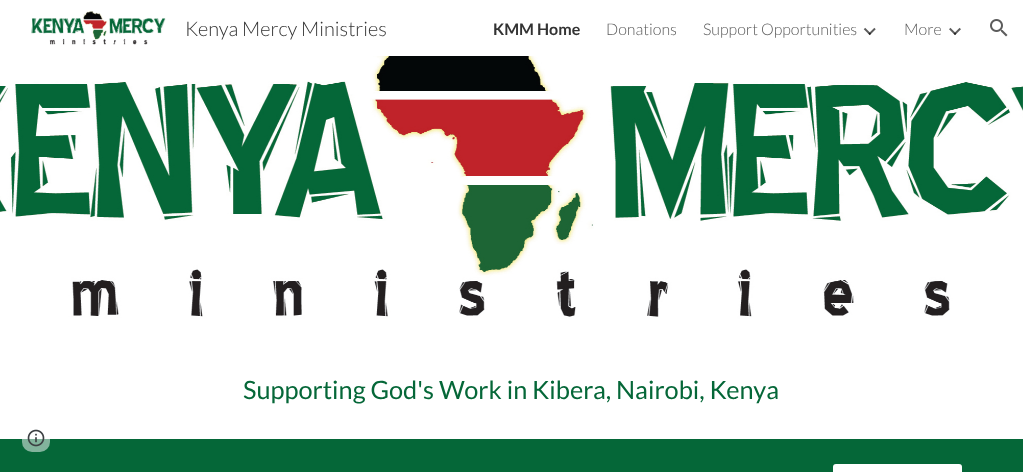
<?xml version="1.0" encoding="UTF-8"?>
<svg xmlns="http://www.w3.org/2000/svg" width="1023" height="472">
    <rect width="100%" height="100%" fill="#FFFFFF"/>
    <image x="31" y="11" width="135" height="34" href="img_01.png"/>
    <text x="185" y="36" font-family="Lato" font-size="20" font-weight="300" fill="#333333">Kenya Mercy Ministries</text>
    <text x="493" y="35" font-family="Lato" font-size="16" font-weight="700" fill="#333333">KMM Home</text>
    <text x="606" y="35" font-family="Lato" font-size="16" font-weight="300" fill="#5C5C5C">Donations</text>
    <text x="703" y="35" font-family="Lato" font-size="16" font-weight="300" fill="#5C5C5C">Support Opportunities</text>
    <image x="863" y="27" width="13" height="9" href="img_02.png"/>
    <text x="904" y="35" font-family="Lato" font-size="16" font-weight="300" fill="#5C5C5C">More</text>
    <image x="949" y="27" width="12" height="8" href="img_03.png"/>
    <image x="990" y="19" width="18" height="18" href="img_04.png"/>
    <image x="0" y="56" width="1023" height="284" href="img_05.png"/>
    <text x="243" y="399" font-family="Lato" font-size="25.3" fill="#056738">Supporting God's Work in Kibera, Nairobi, Kenya</text>
    <rect x="0" y="439" width="1023" height="33" fill="#056738"/>
    <rect x="833" y="464" width="129" height="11" rx="3" fill="#FFFFFF"/>
    <rect x="22" y="424" width="28" height="28" rx="10" fill="#FFFFFF" fill-opacity="0.5"/>
    <image x="27" y="429" width="18" height="18" href="img_06.png"/>
</svg>
